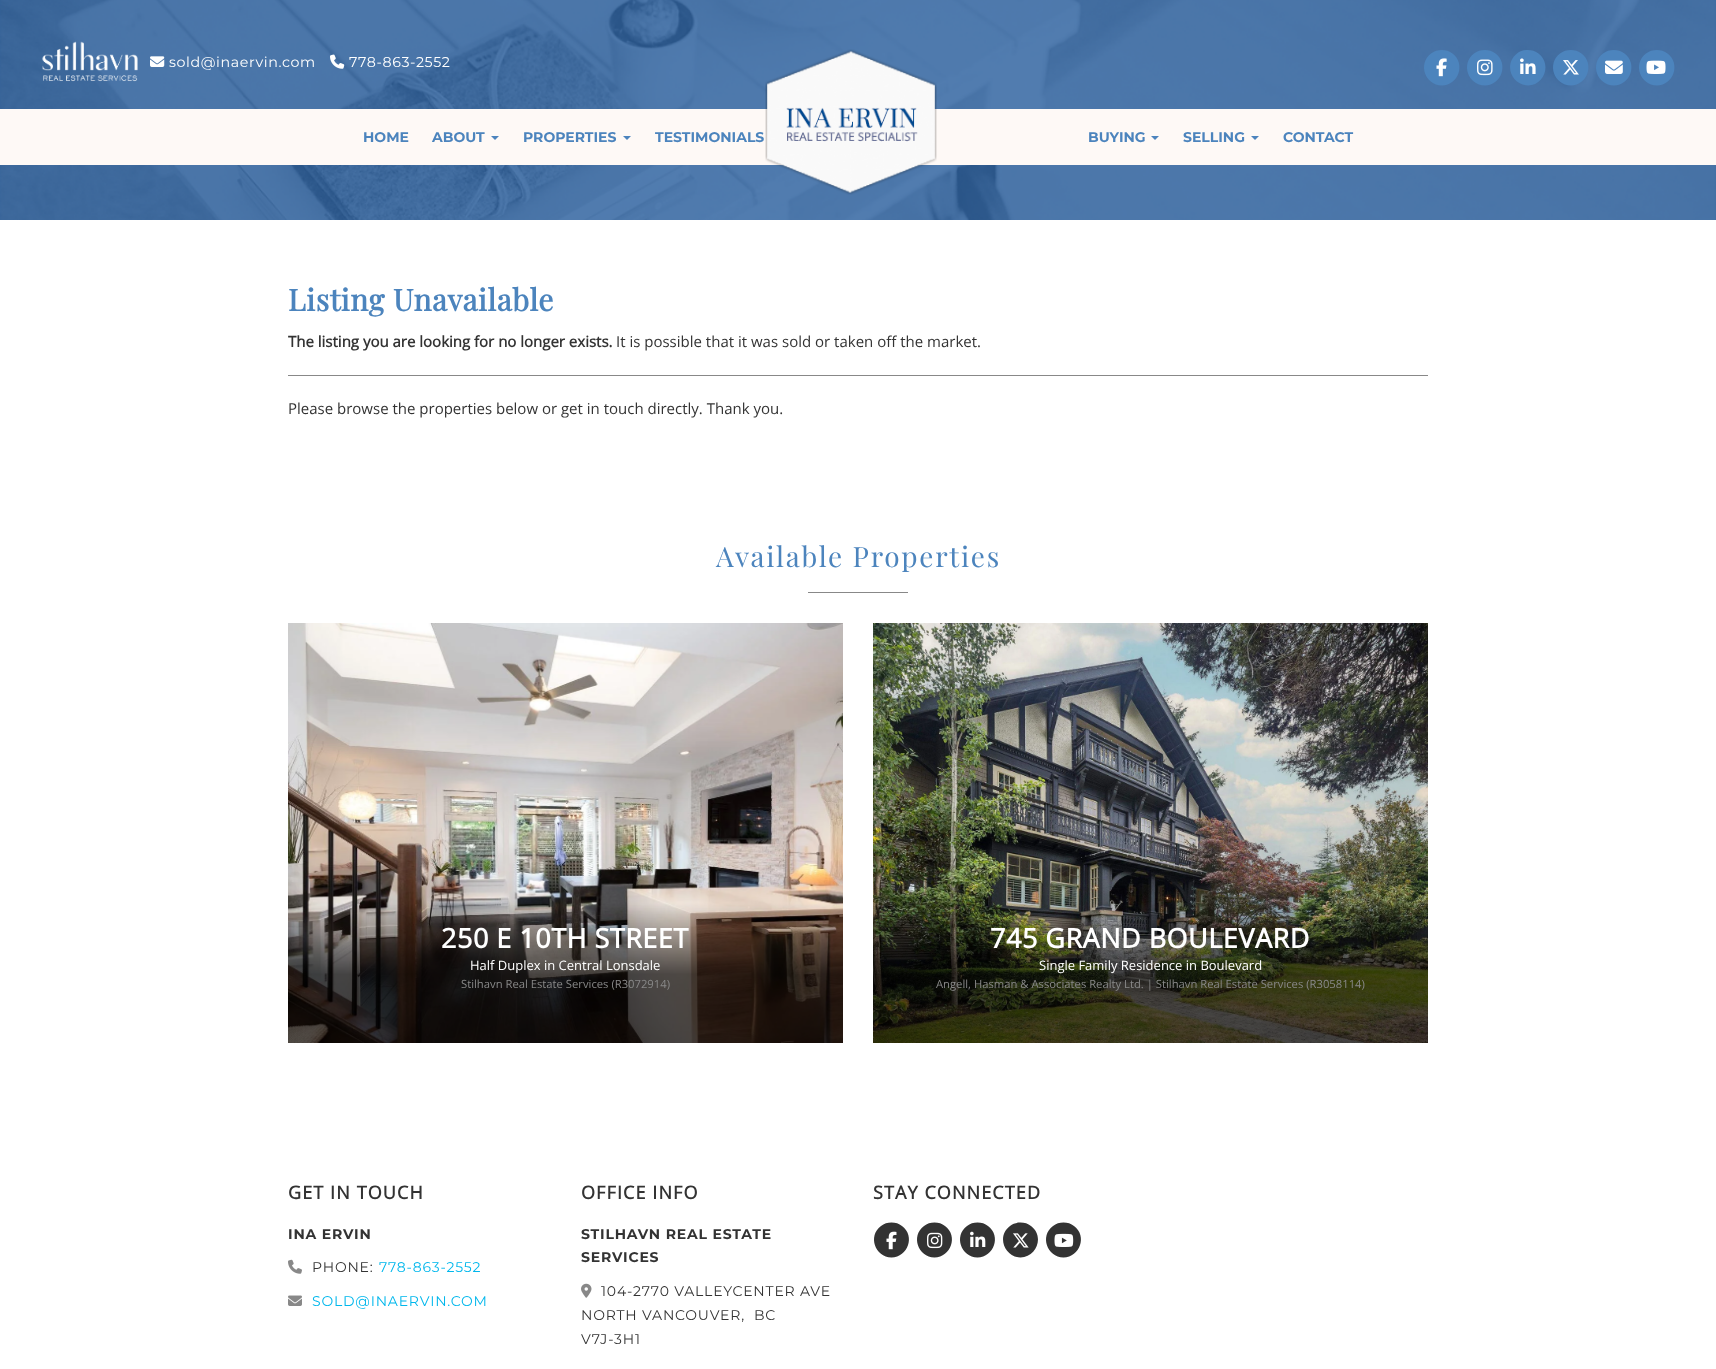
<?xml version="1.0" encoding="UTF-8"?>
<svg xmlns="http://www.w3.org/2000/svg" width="1716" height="1369">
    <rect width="100%" height="100%" fill="#FFFFFF"/>
    <image x="0" y="0" width="1716" height="220" href="img_01.png"/>
    <image x="42" y="41" width="96" height="41" href="img_02.png"/>
    <image x="150" y="56" width="15" height="11" href="img_03.png"/>
    <text x="169" y="67" font-family="Montserrat" font-size="14.25" letter-spacing="0.6" fill="#FFFFFF">sold@inaervin.com</text>
    <image x="330" y="54" width="15" height="15" href="img_04.png"/>
    <text x="349" y="67" font-family="Montserrat" font-size="14.25" letter-spacing="0.6" fill="#FFFFFF">778-863-2552</text>
    <path d="M 1442 85.5 C 1458.5 85 1466 64 1452.5 53.5 C 1449.5 51 1445.5 50 1442 50 C 1438 50 1434 51 1431 53.5 C 1417.5 64 1425 85 1442 85.5 Z" fill="#4C84BD"/>
    <image x="1436" y="58" width="11" height="19" href="img_05.png"/>
    <path d="M 1485 85.5 C 1501.5 85 1509 64 1495.5 53.5 C 1492.5 51 1488.5 50 1485 50 C 1481 50 1477 51 1474 53.5 C 1460.5 64 1468 85 1485 85.5 Z" fill="#4C84BD"/>
    <image x="1477" y="59" width="16" height="17" href="img_06.png"/>
    <path d="M 1528 85.5 C 1544.5 85 1552 64 1538.5 53.5 C 1535.5 51 1531.5 50 1528 50 C 1524 50 1520 51 1517 53.5 C 1503.5 64 1511 85 1528 85.5 Z" fill="#4C84BD"/>
    <image x="1520" y="58" width="16" height="16" href="img_07.png"/>
    <path d="M 1571 85.5 C 1587.5 85 1595 64 1581.5 53.5 C 1578.5 51 1574.5 50 1571 50 C 1567 50 1563 51 1560 53.5 C 1546.5 64 1554 85 1571 85.5 Z" fill="#4C84BD"/>
    <image x="1563" y="60" width="16" height="15" href="img_08.png"/>
    <path d="M 1614 85.5 C 1630.5 85 1638 64 1624.5 53.5 C 1621.5 51 1617.5 50 1614 50 C 1610 50 1606 51 1603 53.5 C 1589.5 64 1597 85 1614 85.5 Z" fill="#4C84BD"/>
    <image x="1605" y="60" width="18" height="14" href="img_09.png"/>
    <path d="M 1657 85.5 C 1673.5 85 1681 64 1667.5 53.5 C 1664.5 51 1660.5 50 1657 50 C 1653 50 1649 51 1646 53.5 C 1632.5 64 1640 85 1657 85.5 Z" fill="#4C84BD"/>
    <image x="1646" y="60" width="20" height="14" href="img_10.png"/>
    <rect x="0" y="109" width="1716" height="56" fill="#FEF9F6"/>
    <image x="765" y="49" width="172" height="146" href="img_11.png"/>
    <text x="363" y="142" font-family="Montserrat" font-size="14" font-weight="700" fill="#4C84BD">HOME</text>
    <text x="432" y="142" font-family="Montserrat" font-size="14" font-weight="700" fill="#4C84BD">ABOUT</text>
    <path d="M 491 136 H 499 L 495 140 Z" fill="#4C84BD"/>
    <text x="523" y="142" font-family="Montserrat" font-size="14" font-weight="700" fill="#4C84BD">PROPERTIES</text>
    <path d="M 623 136 H 631 L 627 140 Z" fill="#4C84BD"/>
    <text x="655" y="142" font-family="Montserrat" font-size="14" font-weight="700" fill="#4C84BD">TESTIMONIALS</text>
    <text x="1088" y="142" font-family="Montserrat" font-size="14" font-weight="700" fill="#4C84BD">BUYING</text>
    <path d="M 1151 136 H 1159 L 1155 140 Z" fill="#4C84BD"/>
    <text x="1183" y="142" font-family="Montserrat" font-size="14" font-weight="700" fill="#4C84BD">SELLING</text>
    <path d="M 1251 136 H 1259 L 1255 140 Z" fill="#4C84BD"/>
    <text x="1283" y="142" font-family="Montserrat" font-size="14" font-weight="700" fill="#4C84BD">CONTACT</text>
    <text x="288" y="311" font-family="Playfair Display" font-size="30" font-weight="700" letter-spacing="0.6" fill="#4C84BD">Listing Unavailable</text>
    <text x="288" y="347" font-family="Open Sans" font-size="15" font-weight="700" fill="#333333">The listing you are looking for no longer exists.</text>
    <text x="616" y="347" font-family="Open Sans" font-size="15" fill="#333333">It is possible that it was sold or taken off the market.</text>
    <rect x="288" y="375" width="1140" height="1" fill="#888888"/>
    <text x="288" y="414" font-family="Open Sans" font-size="15" fill="#333333">Please browse the properties below or get in touch directly. Thank you.</text>
    <text x="716" y="567" font-family="Playfair Display" font-size="28" letter-spacing="1.7" fill="#4C84BD">Available Properties</text>
    <rect x="808" y="592" width="100" height="1" fill="#888888"/>
    <image x="288" y="623" width="555" height="420" href="img_12.png"/>
    <text x="441" y="948" font-family="Open Sans" font-size="27" font-weight="700" letter-spacing="0.5" fill="#FFFFFF">250 E 10TH STREET</text>
    <text x="470" y="970" font-family="Open Sans" font-size="13" fill="#FFFFFF">Half Duplex in Central Lonsdale</text>
    <text x="461" y="988" font-family="Open Sans" font-size="11.25" fill="#888888">Stilhavn Real Estate Services (R3072914)</text>
    <image x="873" y="623" width="555" height="420" href="img_13.png"/>
    <text x="990" y="948" font-family="Open Sans" font-size="27" font-weight="700" letter-spacing="0.5" fill="#FFFFFF">745 GRAND BOULEVARD</text>
    <text x="1039" y="970" font-family="Open Sans" font-size="13" fill="#FFFFFF">Single Family Residence in Boulevard</text>
    <text x="936" y="988" font-family="Open Sans" font-size="11.25" fill="#888888">Angell, Hasman &amp; Associates Realty Ltd. | Stilhavn Real Estate Services (R3058114)</text>
    <text x="288" y="1199" font-family="Open Sans" font-size="18" font-weight="700" letter-spacing="1.1" fill="#333333">GET IN TOUCH</text>
    <text x="288" y="1239" font-family="Montserrat" font-size="14" font-weight="700" letter-spacing="0.8" fill="#333333">INA ERVIN</text>
    <image x="288" y="1259" width="14" height="15" href="img_14.png"/>
    <text x="312" y="1272" font-family="Montserrat" font-size="14" letter-spacing="0.8" fill="#333333">PHONE:</text>
    <text x="379" y="1272" font-family="Montserrat" font-size="14" letter-spacing="0.8" fill="#00B7EC">778-863-2552</text>
    <image x="288" y="1295" width="14" height="11" href="img_15.png"/>
    <text x="312" y="1306" font-family="Montserrat" font-size="14" letter-spacing="0.8" fill="#00B7EC">SOLD@INAERVIN.COM</text>
    <text x="581" y="1199" font-family="Open Sans" font-size="18" font-weight="700" letter-spacing="1.1" fill="#333333">OFFICE INFO</text>
    <text font-family="Montserrat" font-size="14" font-weight="700" letter-spacing="0.8" fill="#333333">
        <tspan x="581" y="1239">STILHAVN REAL ESTATE</tspan>
        <tspan x="581" y="1262">SERVICES</tspan>
    </text>
    <image x="581" y="1283" width="11" height="15" href="img_16.png"/>
    <text x="601" y="1296" font-family="Montserrat" font-size="14" letter-spacing="0.8" fill="#333333">104-2770 VALLEYCENTER AVE</text>
    <text x="581" y="1320" font-family="Montserrat" font-size="14" letter-spacing="0.8" fill="#333333">NORTH VANCOUVER,</text>
    <text x="754" y="1320" font-family="Montserrat" font-size="14" letter-spacing="0.8" fill="#333333">BC</text>
    <text x="581" y="1344" font-family="Montserrat" font-size="14" letter-spacing="0.8" fill="#333333">V7J-3H1</text>
    <text x="873" y="1199" font-family="Open Sans" font-size="18" font-weight="700" letter-spacing="1.1" fill="#333333">STAY CONNECTED</text>
    <path d="M 891.5 1257.5 C 908 1257 915.5 1236 902 1226 C 899 1223.5 895.5 1222.5 891.5 1222.5 C 887.5 1222.5 884 1223.5 881 1226 C 867.5 1236 875 1257 891.5 1257.5 Z" fill="#333333"/>
    <image x="886" y="1231" width="11" height="19" href="img_17.png"/>
    <path d="M 934.5 1257.5 C 951 1257 958.5 1236 945 1226 C 942 1223.5 938.5 1222.5 934.5 1222.5 C 930.5 1222.5 927 1223.5 924 1226 C 910.5 1236 918 1257 934.5 1257.5 Z" fill="#333333"/>
    <image x="927" y="1232" width="16" height="17" href="img_18.png"/>
    <path d="M 977.5 1257.5 C 994 1257 1001.5 1236 988 1226 C 985 1223.5 981.5 1222.5 977.5 1222.5 C 973.5 1222.5 970 1223.5 967 1226 C 953.5 1236 961 1257 977.5 1257.5 Z" fill="#333333"/>
    <image x="970" y="1231" width="16" height="16" href="img_19.png"/>
    <path d="M 1020.5 1257.5 C 1037 1257 1044.5 1236 1031 1226 C 1028 1223.5 1024.5 1222.5 1020.5 1222.5 C 1016.5 1222.5 1013 1223.5 1010 1226 C 996.5 1236 1004 1257 1020.5 1257.5 Z" fill="#333333"/>
    <image x="1013" y="1233" width="16" height="15" href="img_20.png"/>
    <path d="M 1063.5 1257.5 C 1080 1257 1087.5 1236 1074 1226 C 1071 1223.5 1067.5 1222.5 1063.5 1222.5 C 1059.5 1222.5 1056 1223.5 1053 1226 C 1039.5 1236 1047 1257 1063.5 1257.5 Z" fill="#333333"/>
    <image x="1054" y="1233" width="20" height="14" href="img_21.png"/>
</svg>
